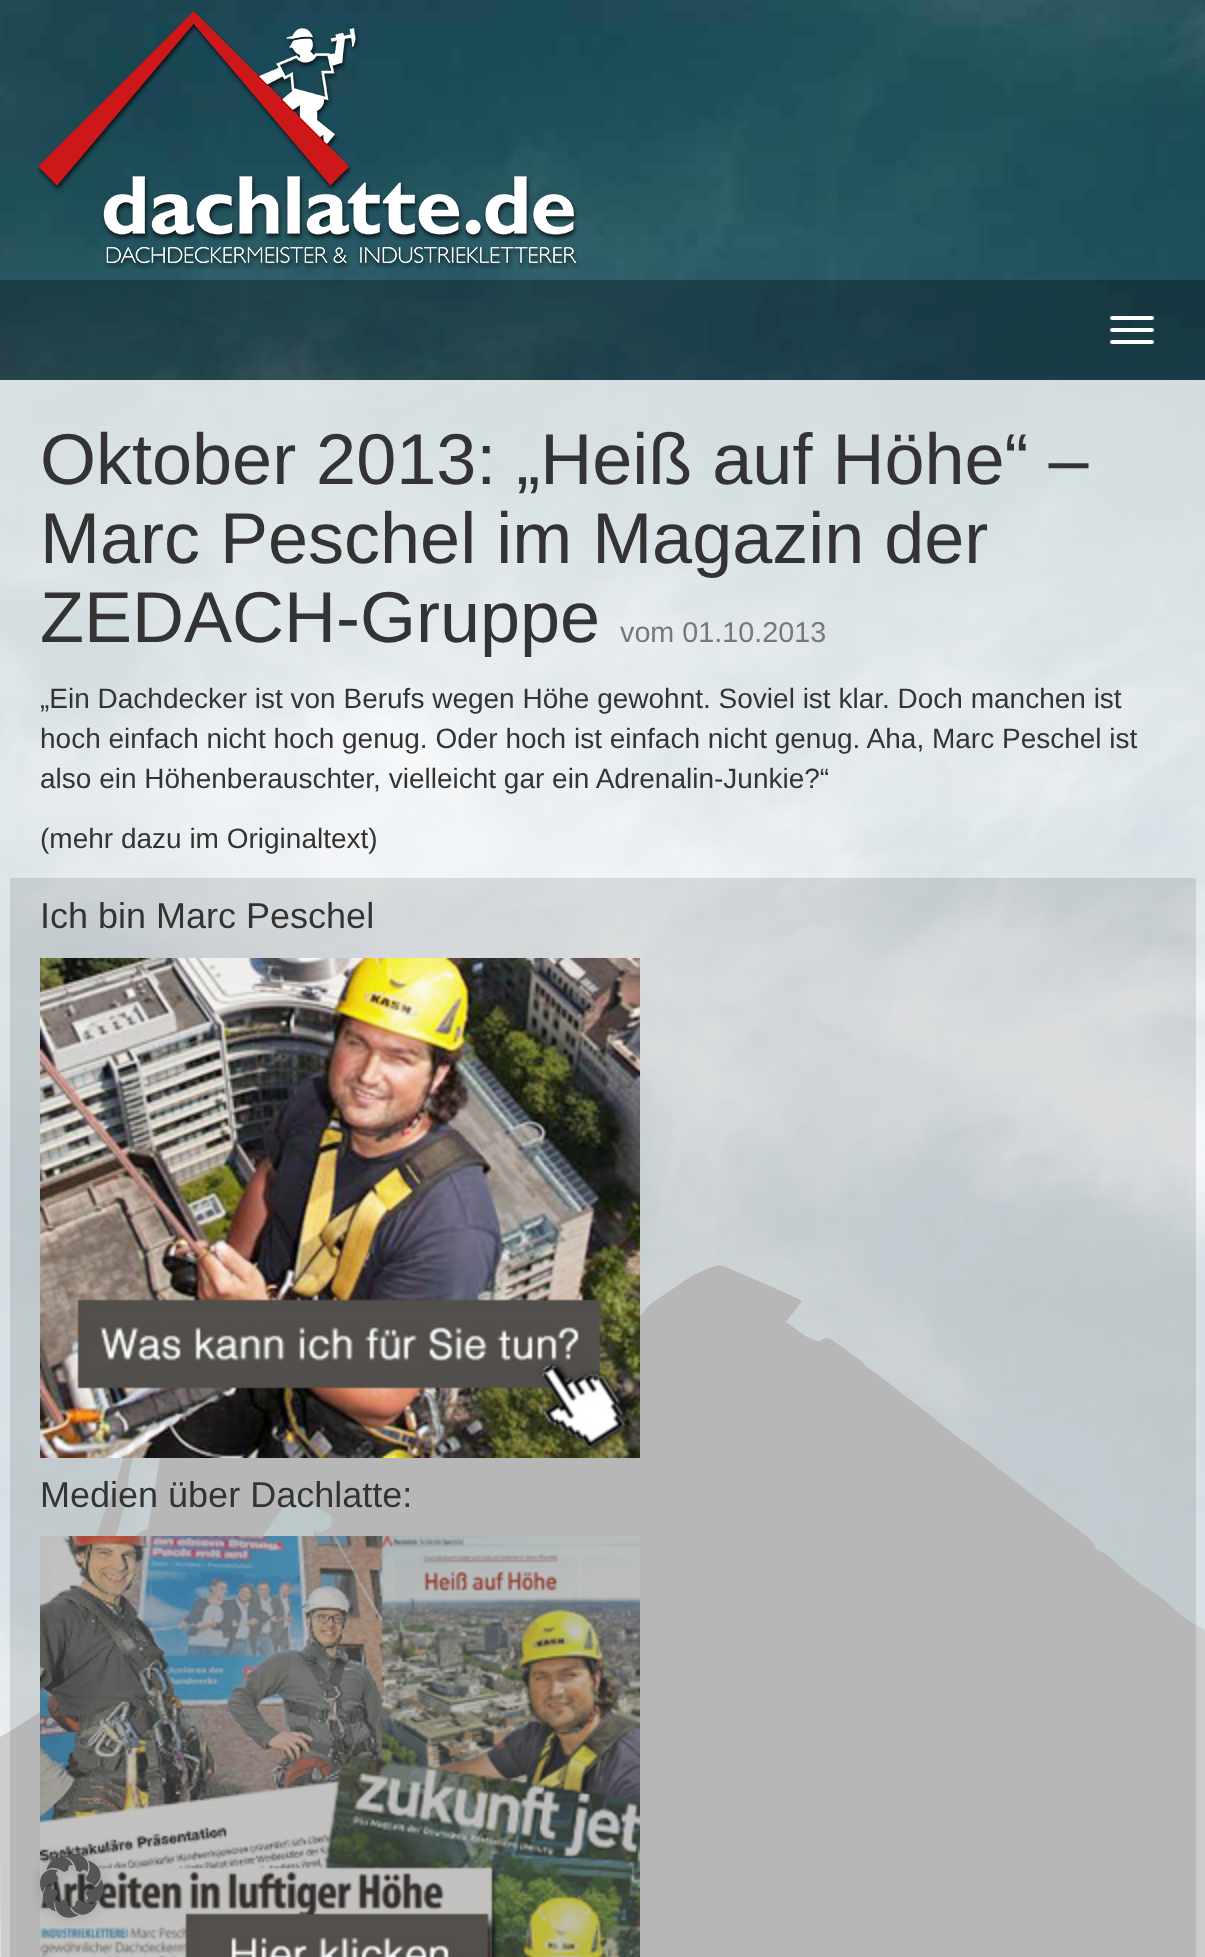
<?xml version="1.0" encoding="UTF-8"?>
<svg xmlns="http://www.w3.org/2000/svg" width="1205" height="1957">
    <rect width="100%" height="100%" fill="#FFFFFF"/>
    <image x="0" y="0" width="1205" height="1957" href="img_01.png"/>
    <image x="37" y="11" width="542" height="258" href="img_02.png"/>
    <rect x="0" y="280" width="1205" height="100" fill="#000000" fill-opacity="0.3"/>
    <rect x="1110" y="316" width="44" height="4" rx="2" fill="#FFFFFF"/>
    <rect x="1110" y="328" width="44" height="4" rx="2" fill="#FFFFFF"/>
    <rect x="1110" y="340" width="44" height="4" rx="2" fill="#FFFFFF"/>
    <image x="0" y="1265" width="1205" height="692" href="img_05.png"/>
    <rect x="0" y="380" width="1205" height="1577" fill="#FFFFFF" fill-opacity="0.8"/>
    <text font-family="Liberation Sans" font-size="72" fill="#333333">
        <tspan x="40" y="484">Oktober 2013: „Heiß auf Höhe“ –</tspan>
        <tspan x="40" y="563">Marc Peschel im Magazin der</tspan>
        <tspan x="40" y="642">ZEDACH-Gruppe</tspan>
    </text>
    <text x="620" y="642" font-family="Liberation Sans" font-size="28.75" fill="#777777">vom 01.10.2013</text>
    <text font-family="Liberation Sans" font-size="28" fill="#333333">
        <tspan x="40" y="708">„Ein Dachdecker ist von Berufs wegen Höhe gewohnt. Soviel ist klar. Doch manchen ist</tspan>
        <tspan x="40" y="748">hoch einfach nicht hoch genug. Oder hoch ist einfach nicht genug. Aha, Marc Peschel ist</tspan>
        <tspan x="40" y="788">also ein Höhenberauschter, vielleicht gar ein Adrenalin-Junkie?“</tspan>
    </text>
    <text x="40" y="848" font-family="Liberation Sans" font-size="28" fill="#333333">(mehr dazu im Originaltext)</text>
    <rect x="10" y="878" width="1186" height="1079" fill="#000000" fill-opacity="0.1"/>
    <text x="40" y="928" font-family="Liberation Sans" font-size="36" fill="#333333">Ich bin Marc Peschel</text>
    <image x="40" y="958" width="600" height="500" href="img_03.png"/>
    <text x="40" y="1507" font-family="Liberation Sans" font-size="36" fill="#333333">Medien über Dachlatte:</text>
    <image x="40" y="1536" width="600" height="421" href="img_04.png"/>
    <image x="32" y="1846" width="79" height="80" href="img_06.png"/>
</svg>
